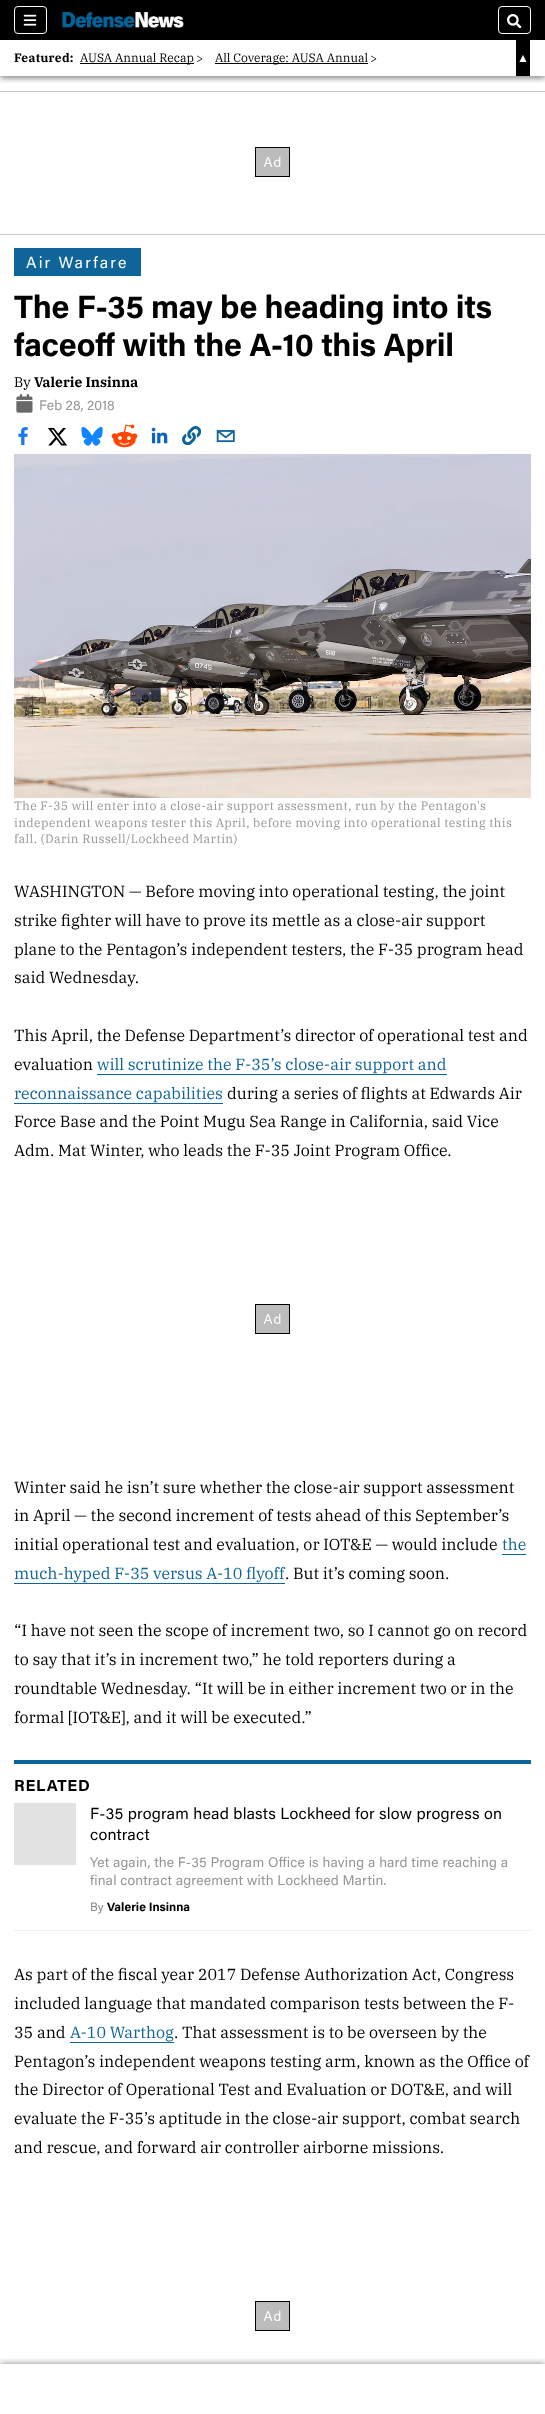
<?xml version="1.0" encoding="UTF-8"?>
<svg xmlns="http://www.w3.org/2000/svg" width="545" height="2414">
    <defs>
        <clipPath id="clip1"><rect x="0" y="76" width="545" height="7"/></clipPath>
        <filter id="blur1" x="-50%" y="-200%" width="200%" height="500%"><feGaussianBlur stdDeviation="3"/></filter>
        <clipPath id="clip2"><rect x="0" y="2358" width="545" height="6"/></clipPath>
        <filter id="blur2" x="-50%" y="-200%" width="200%" height="500%"><feGaussianBlur stdDeviation="3.5"/></filter>
    </defs>
    <rect width="100%" height="100%" fill="#FFFFFF"/>
    <g clip-path="url(#clip1)">
        <rect x="0" y="2" width="545" height="76" fill="#000000" fill-opacity="0.5" filter="url(#blur1)"/>
    </g>
    <rect x="0" y="0" width="545" height="40" fill="#000000"/>
    <rect x="14.5" y="6.5" width="32" height="27" rx="3.5" fill="none" stroke="#FFFFFF"/>
    <image x="23" y="14" width="14" height="12" href="img_01.png"/>
    <image x="62" y="12" width="122" height="16" href="img_02.png"/>
    <rect x="498.5" y="6.5" width="32" height="27" rx="3.5" fill="none" stroke="#FFFFFF"/>
    <image x="507" y="14" width="15" height="14" href="img_03.png"/>
    <text x="14" y="62" font-family="IBM Plex Serif" font-size="12.1" font-weight="700" letter-spacing="0.25" fill="#000000">Featured:</text>
    <rect x="80" y="63" width="114" height="1" fill="#000000"/>
    <text x="80" y="62" font-family="IBM Plex Serif" font-size="12.1" fill="#000000">AUSA Annual Recap</text>
    <text x="196" y="62" font-family="IBM Plex Serif" font-size="12.1" letter-spacing="-3" fill="#000000">&gt;</text>
    <rect x="215" y="63" width="153" height="1" fill="#000000"/>
    <text x="215" y="62" font-family="IBM Plex Serif" font-size="12.1" fill="#000000">All Coverage: AUSA Annual</text>
    <text x="370" y="62" font-family="IBM Plex Serif" font-size="12.1" letter-spacing="-3" fill="#000000">&gt;</text>
    <rect x="516" y="40" width="14" height="36" fill="#000000"/>
    <text x="517" y="62" font-family="Liberation Serif" font-size="12" fill="#FFFFFF">▲</text>
    <g clip-path="url(#clip2)">
        <rect x="0" y="2364" width="545" height="50" fill="#000000" fill-opacity="0.5" filter="url(#blur2)"/>
    </g>
    <rect x="0" y="91" width="545" height="1" fill="#C9C9C9"/>
    <rect x="256" y="148" width="33" height="28" fill="#BCBCBC"/>
    <image x="263" y="156" width="18" height="11" href="img_04.png"/>
    <rect x="255.5" y="147.5" width="34" height="29" fill="none" stroke="#000000"/>
    <rect x="0" y="234" width="545" height="1" fill="#C9C9C9"/>
    <rect x="14" y="248" width="127" height="28" fill="#0F6499"/>
    <text x="26" y="268" font-family="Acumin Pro" font-size="16" letter-spacing="2.1" fill="#FFFFFF">Air Warfare</text>
    <text font-family="Acumin Pro" font-size="32.2" font-weight="700" letter-spacing="-0.25" fill="#000000">
        <tspan x="14" y="318">The F-35 may be heading into its</tspan>
        <tspan x="14" y="356">faceoff with the A-10 this April</tspan>
    </text>
    <text x="14" y="387" font-family="IBM Plex Serif" font-size="13.9" fill="#000000">By</text>
    <text x="34" y="387" font-family="IBM Plex Serif" font-size="13.9" font-weight="700" fill="#000000">Valerie Insinna</text>
    <image x="16" y="394" width="17" height="19" href="img_05.png"/>
    <text x="39" y="410" font-family="Acumin Pro" font-size="13.9" fill="#969696">Feb 28, 2018</text>
    <image x="18" y="427" width="10" height="19" href="img_06.png"/>
    <image x="48" y="427" width="20" height="19" href="img_07.png"/>
    <image x="81" y="427" width="22" height="19" href="img_08.png"/>
    <image x="111" y="424" width="27" height="24" href="img_09.png"/>
    <image x="151" y="427" width="17" height="17" href="img_10.png"/>
    <image x="182" y="426" width="19" height="19" href="img_11.png"/>
    <image x="216" y="430" width="19" height="13" href="img_12.png"/>
    <image x="14" y="454" width="517" height="344" href="img_13.png"/>
    <text font-family="IBM Plex Serif" font-size="12.1" letter-spacing="0.4" fill="#969696">
        <tspan x="14" y="810">The F-35 will enter into a close-air support assessment, run by the Pentagon's</tspan>
        <tspan x="14" y="827">independent weapons tester this April, before moving into operational testing this</tspan>
        <tspan x="14" y="843">fall. (Darin Russell/Lockheed Martin)</tspan>
    </text>
    <text font-family="IBM Plex Serif" font-size="16" fill="#000000">
        <tspan x="14" y="897">WASHINGTON — Before moving into operational testing, the joint</tspan>
        <tspan x="14" y="926">strike fighter will have to prove its mettle as a close-air support</tspan>
        <tspan x="14" y="955">plane to the Pentagon’s independent testers, the F-35 program head</tspan>
        <tspan x="14" y="983">said Wednesday.</tspan>
    </text>
    <text font-family="IBM Plex Serif" font-size="16" fill="#000000">
        <tspan x="14" y="1041">This April, the Defense Department’s director of operational test and</tspan>
        <tspan x="14" y="1070">evaluation</tspan>
    </text>
    <text x="97" y="1070" font-family="IBM Plex Serif" font-size="16" fill="#0F6499">will scrutinize the F-35’s close-air support and</text>
    <rect x="97" y="1074" width="350" height="1" fill="#0F6499"/>
    <text x="14" y="1099" font-family="IBM Plex Serif" font-size="16" fill="#0F6499">reconnaissance capabilities</text>
    <rect x="14" y="1103" width="209" height="1" fill="#0F6499"/>
    <text x="227" y="1099" font-family="IBM Plex Serif" font-size="16" fill="#000000">during a series of flights at Edwards Air</text>
    <text font-family="IBM Plex Serif" font-size="16" fill="#000000">
        <tspan x="14" y="1127">Force Base and the Point Mugu Sea Range in California, said Vice</tspan>
        <tspan x="14" y="1156">Adm. Mat Winter, who leads the F-35 Joint Program Office.</tspan>
    </text>
    <rect x="256" y="1305" width="33" height="28" fill="#BCBCBC"/>
    <image x="263" y="1313" width="18" height="11" href="img_04.png"/>
    <rect x="255.5" y="1304.5" width="34" height="29" fill="none" stroke="#000000"/>
    <text font-family="IBM Plex Serif" font-size="16" fill="#000000">
        <tspan x="14" y="1493">Winter said he isn’t sure whether the close-air support assessment</tspan>
        <tspan x="14" y="1521">in April — the second increment of tests ahead of this September’s</tspan>
        <tspan x="14" y="1550">initial operational test and evaluation, or IOT&amp;E — would include</tspan>
    </text>
    <text x="502" y="1550" font-family="IBM Plex Serif" font-size="16" fill="#0F6499">the</text>
    <rect x="502" y="1554" width="24" height="1" fill="#0F6499"/>
    <text x="14" y="1579" font-family="IBM Plex Serif" font-size="16" fill="#0F6499">much-hyped F-35 versus A-10 flyoff</text>
    <rect x="14" y="1583" width="271" height="1" fill="#0F6499"/>
    <text x="285" y="1579" font-family="IBM Plex Serif" font-size="16" fill="#000000">. But it’s coming soon.</text>
    <text font-family="IBM Plex Serif" font-size="16" fill="#000000">
        <tspan x="14" y="1636">“I have not seen the scope of increment two, so I cannot go on record</tspan>
        <tspan x="14" y="1665">to say that it’s in increment two,” he told reporters during a</tspan>
        <tspan x="14" y="1694">roundtable Wednesday. “It will be in either increment two or in the</tspan>
        <tspan x="14" y="1723">formal [IOT&amp;E], and it will be executed.”</tspan>
    </text>
    <rect x="14" y="1930" width="517" height="1" fill="#EFEFEF"/>
    <rect x="14" y="1760" width="517" height="4" fill="#0F6499"/>
    <text x="14" y="1791" font-family="Acumin Pro" font-size="16" font-weight="700" letter-spacing="0.75" fill="#000000">RELATED</text>
    <rect x="14" y="1803" width="62" height="62" fill="#E2E2E2"/>
    <text font-family="Acumin Pro" font-size="16" letter-spacing="0.2" fill="#000000">
        <tspan x="90" y="1819">F-35 program head blasts Lockheed for slow progress on</tspan>
        <tspan x="90" y="1840">contract</tspan>
    </text>
    <text font-family="Acumin Pro" font-size="13.9" letter-spacing="0.17" fill="#969696">
        <tspan x="90" y="1867">Yet again, the F-35 Program Office is having a hard time reaching a</tspan>
        <tspan x="90" y="1885">final contract agreement with Lockheed Martin.</tspan>
    </text>
    <text x="90" y="1911" font-family="Acumin Pro" font-size="12.1" fill="#898989">By</text>
    <text x="107" y="1911" font-family="Acumin Pro" font-size="12.1" font-weight="700" fill="#000000">Valerie Insinna</text>
    <text font-family="IBM Plex Serif" font-size="16" fill="#000000">
        <tspan x="14" y="1980">As part of the fiscal year 2017 Defense Authorization Act, Congress</tspan>
        <tspan x="14" y="2009">included language that mandated comparison tests between the F-</tspan>
        <tspan x="14" y="2038">35 and</tspan>
    </text>
    <text x="70" y="2038" font-family="IBM Plex Serif" font-size="16" fill="#0F6499">A-10 Warthog</text>
    <rect x="70" y="2042" width="104" height="1" fill="#0F6499"/>
    <text x="174" y="2038" font-family="IBM Plex Serif" font-size="16" fill="#000000">. That assessment is to be overseen by the</text>
    <text font-family="IBM Plex Serif" font-size="16" fill="#000000">
        <tspan x="14" y="2067">Pentagon’s independent weapons testing arm, known as the Office of</tspan>
        <tspan x="14" y="2095">the Director of Operational Test and Evaluation or DOT&amp;E, and will</tspan>
        <tspan x="14" y="2124">evaluate the F-35’s aptitude in the close-air support, combat search</tspan>
        <tspan x="14" y="2153">and rescue, and forward air controller airborne missions.</tspan>
    </text>
    <rect x="256" y="2302" width="33" height="28" fill="#BCBCBC"/>
    <image x="263" y="2310" width="18" height="11" href="img_04.png"/>
    <rect x="255.5" y="2301.5" width="34" height="29" fill="none" stroke="#000000"/>
</svg>
